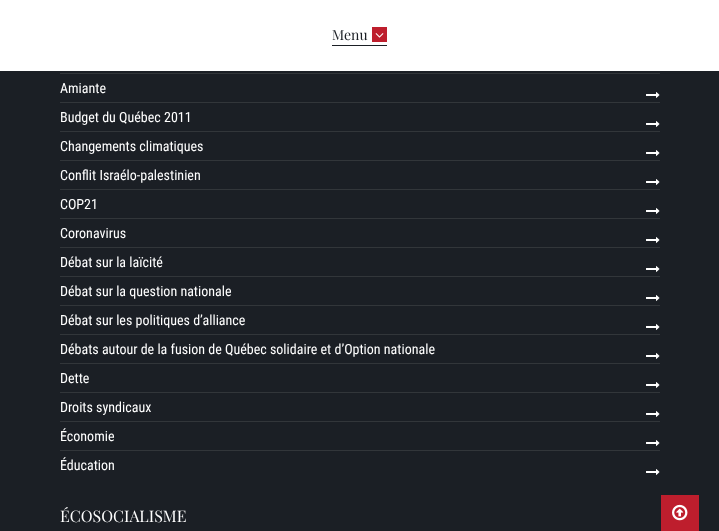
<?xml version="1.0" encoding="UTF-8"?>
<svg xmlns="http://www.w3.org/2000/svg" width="719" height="531">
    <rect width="100%" height="100%" fill="#1B1F25"/>
    <rect x="0" y="0" width="719" height="71" fill="#FFFFFF"/>
    <rect x="332" y="45" width="55" height="1" fill="#1B1F25"/>
    <text x="332" y="40" font-family="Playfair Display" font-size="14" fill="#1B1F25">Menu</text>
    <rect x="372" y="27" width="15" height="15" fill="#BE1E2D"/>
    <image x="375" y="33" width="9" height="5" href="img_01.png"/>
    <rect x="60" y="73" width="600" height="1" fill="#32363A"/>
    <text x="60" y="93" font-family="Roboto Condensed" font-size="14" fill="#FFFFFF">Amiante</text>
    <image x="646" y="92" width="14" height="6" href="img_02.png"/>
    <rect x="60" y="102" width="600" height="1" fill="#32363A"/>
    <text x="60" y="122" font-family="Roboto Condensed" font-size="14" fill="#FFFFFF">Budget du Québec 2011</text>
    <image x="646" y="121" width="14" height="6" href="img_02.png"/>
    <rect x="60" y="131" width="600" height="1" fill="#32363A"/>
    <text x="60" y="151" font-family="Roboto Condensed" font-size="14" fill="#FFFFFF">Changements climatiques</text>
    <image x="646" y="150" width="14" height="6" href="img_02.png"/>
    <rect x="60" y="160" width="600" height="1" fill="#32363A"/>
    <text x="60" y="180" font-family="Roboto Condensed" font-size="14" fill="#FFFFFF">Conflit Israélo-palestinien</text>
    <image x="646" y="179" width="14" height="6" href="img_02.png"/>
    <rect x="60" y="189" width="600" height="1" fill="#32363A"/>
    <text x="60" y="209" font-family="Roboto Condensed" font-size="14" fill="#FFFFFF">COP21</text>
    <image x="646" y="208" width="14" height="6" href="img_02.png"/>
    <rect x="60" y="218" width="600" height="1" fill="#32363A"/>
    <text x="60" y="238" font-family="Roboto Condensed" font-size="14" fill="#FFFFFF">Coronavirus</text>
    <image x="646" y="237" width="14" height="6" href="img_02.png"/>
    <rect x="60" y="247" width="600" height="1" fill="#32363A"/>
    <text x="60" y="267" font-family="Roboto Condensed" font-size="14" fill="#FFFFFF">Débat sur la laïcité</text>
    <image x="646" y="266" width="14" height="6" href="img_02.png"/>
    <rect x="60" y="276" width="600" height="1" fill="#32363A"/>
    <text x="60" y="296" font-family="Roboto Condensed" font-size="14" fill="#FFFFFF">Débat sur la question nationale</text>
    <image x="646" y="295" width="14" height="6" href="img_02.png"/>
    <rect x="60" y="305" width="600" height="1" fill="#32363A"/>
    <text x="60" y="325" font-family="Roboto Condensed" font-size="14" fill="#FFFFFF">Débat sur les politiques d’alliance</text>
    <image x="646" y="324" width="14" height="6" href="img_02.png"/>
    <rect x="60" y="334" width="600" height="1" fill="#32363A"/>
    <text x="60" y="354" font-family="Roboto Condensed" font-size="14" fill="#FFFFFF">Débats autour de la fusion de Québec solidaire et d’Option nationale</text>
    <image x="646" y="353" width="14" height="6" href="img_02.png"/>
    <rect x="60" y="363" width="600" height="1" fill="#32363A"/>
    <text x="60" y="383" font-family="Roboto Condensed" font-size="14" fill="#FFFFFF">Dette</text>
    <image x="646" y="382" width="14" height="6" href="img_02.png"/>
    <rect x="60" y="392" width="600" height="1" fill="#32363A"/>
    <text x="60" y="412" font-family="Roboto Condensed" font-size="14" fill="#FFFFFF">Droits syndicaux</text>
    <image x="646" y="411" width="14" height="6" href="img_02.png"/>
    <rect x="60" y="421" width="600" height="1" fill="#32363A"/>
    <text x="60" y="441" font-family="Roboto Condensed" font-size="14" fill="#FFFFFF">Économie</text>
    <image x="646" y="440" width="14" height="6" href="img_02.png"/>
    <rect x="60" y="450" width="600" height="1" fill="#32363A"/>
    <text x="60" y="470" font-family="Roboto Condensed" font-size="14" fill="#FFFFFF">Éducation</text>
    <image x="646" y="469" width="14" height="6" href="img_02.png"/>
    <text x="60" y="522" font-family="Playfair Display" font-size="16" fill="#FFFFFF">ÉCOSOCIALISME</text>
    <rect x="661" y="495" width="38" height="36" fill="#BE1E2D"/>
    <image x="672" y="504" width="16" height="17" href="img_03.png"/>
</svg>
